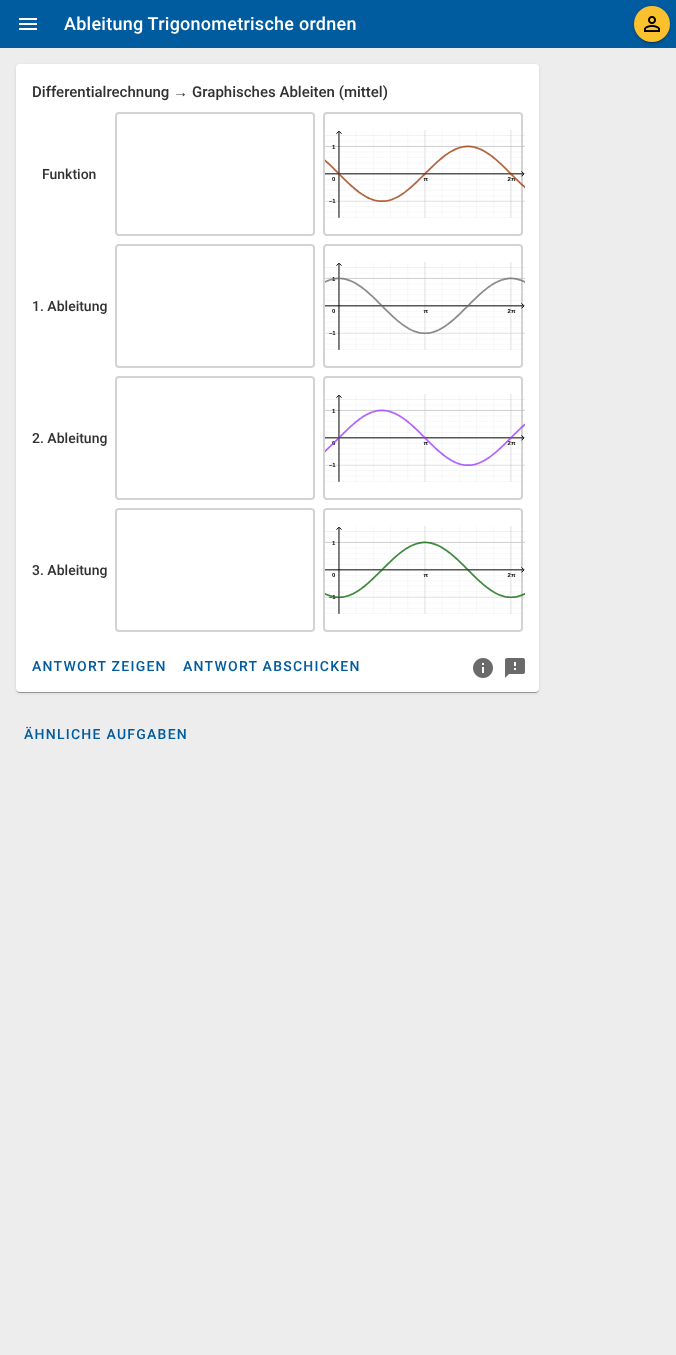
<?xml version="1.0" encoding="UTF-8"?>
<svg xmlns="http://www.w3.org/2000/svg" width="676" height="1355">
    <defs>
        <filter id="blur1" x="-50%" y="-200%" width="200%" height="500%"><feGaussianBlur stdDeviation="2.5"/></filter>
        <filter id="blur2" x="-50%" y="-200%" width="200%" height="500%"><feGaussianBlur stdDeviation="1"/></filter>
        <filter id="blur3" x="-50%" y="-200%" width="200%" height="500%"><feGaussianBlur stdDeviation="0.5"/></filter>
        <filter id="blur4" x="-50%" y="-200%" width="200%" height="500%"><feGaussianBlur stdDeviation="1.5"/></filter>
    </defs>
    <rect width="100%" height="100%" fill="#EDEDED"/>
    <rect x="0" y="0" width="676" height="48" fill="#005B9F"/>
    <image x="19" y="18" width="18" height="12" href="img_01.png"/>
    <text x="64" y="30" font-family="Roboto" font-size="18" font-weight="500" letter-spacing="0.25" fill="#FFFFFF">Ableitung Trigonometrische ordnen</text>
    <rect x="634" y="7" width="36" height="36" rx="18" fill="#000000" fill-opacity="0.12" filter="url(#blur1)"/>
    <rect x="634" y="8" width="36" height="36" rx="18" fill="#000000" fill-opacity="0.14" filter="url(#blur2)"/>
    <rect x="636" y="11" width="32" height="32" rx="16" fill="#000000" fill-opacity="0.2" filter="url(#blur3)"/>
    <circle cx="652" cy="24" r="18" fill="#FBC02D"/>
    <image x="644" y="16" width="16" height="16" href="img_02.png"/>
    <rect x="16" y="65" width="523" height="628" rx="4" fill="#000000" fill-opacity="0.12" filter="url(#blur4)"/>
    <rect x="16" y="65" width="523" height="628" rx="4" fill="#000000" fill-opacity="0.14" filter="url(#blur3)"/>
    <rect x="17" y="67" width="521" height="626" rx="3" fill="#000000" fill-opacity="0.2" filter="url(#blur3)"/>
    <rect x="16" y="64" width="523" height="628" rx="4" fill="#FFFFFF"/>
    <text x="32" y="97" font-family="Roboto" font-size="15" font-weight="500" fill="#313131">Differentialrechnung</text>
    <text x="173" y="97" font-family="Liberation Sans" font-size="15" fill="#313131">→</text>
    <text x="192" y="97" font-family="Roboto" font-size="15" font-weight="500" fill="#313131">Graphisches Ableiten (mittel)</text>
    <text x="42" y="179" font-family="Roboto" font-size="14" font-weight="500" fill="#313131">Funktion</text>
    <rect x="116" y="113" width="198" height="122" rx="3" fill="none" stroke="#D3D3D3" stroke-width="2"/>
    <rect x="324" y="113" width="198" height="122" rx="3" fill="none" stroke="#D3D3D3" stroke-width="2"/>
    <image x="325" y="130" width="200" height="88" href="img_03.png"/>
    <text x="32" y="311" font-family="Roboto" font-size="14" font-weight="500" fill="#313131">1. Ableitung</text>
    <rect x="116" y="245" width="198" height="122" rx="3" fill="none" stroke="#D3D3D3" stroke-width="2"/>
    <rect x="324" y="245" width="198" height="122" rx="3" fill="none" stroke="#D3D3D3" stroke-width="2"/>
    <image x="325" y="262" width="200" height="88" href="img_04.png"/>
    <text x="32" y="443" font-family="Roboto" font-size="14" font-weight="500" fill="#313131">2. Ableitung</text>
    <rect x="116" y="377" width="198" height="122" rx="3" fill="none" stroke="#D3D3D3" stroke-width="2"/>
    <rect x="324" y="377" width="198" height="122" rx="3" fill="none" stroke="#D3D3D3" stroke-width="2"/>
    <image x="325" y="394" width="200" height="88" href="img_05.png"/>
    <text x="32" y="575" font-family="Roboto" font-size="14" font-weight="500" fill="#313131">3. Ableitung</text>
    <rect x="116" y="509" width="198" height="122" rx="3" fill="none" stroke="#D3D3D3" stroke-width="2"/>
    <rect x="324" y="509" width="198" height="122" rx="3" fill="none" stroke="#D3D3D3" stroke-width="2"/>
    <image x="325" y="526" width="200" height="88" href="img_06.png"/>
    <text x="32" y="671" font-family="Roboto" font-size="14" font-weight="500" letter-spacing="1.25" fill="#005B9F">ANTWORT ZEIGEN</text>
    <text x="183" y="671" font-family="Roboto" font-size="14" font-weight="500" letter-spacing="1.25" fill="#005B9F">ANTWORT ABSCHICKEN</text>
    <image x="473" y="658" width="20" height="20" href="img_07.png"/>
    <image x="505" y="658" width="20" height="20" href="img_08.png"/>
    <text x="24" y="739" font-family="Roboto" font-size="14" font-weight="500" letter-spacing="1.25" fill="#005B9F">ÄHNLICHE AUFGABEN</text>
</svg>
